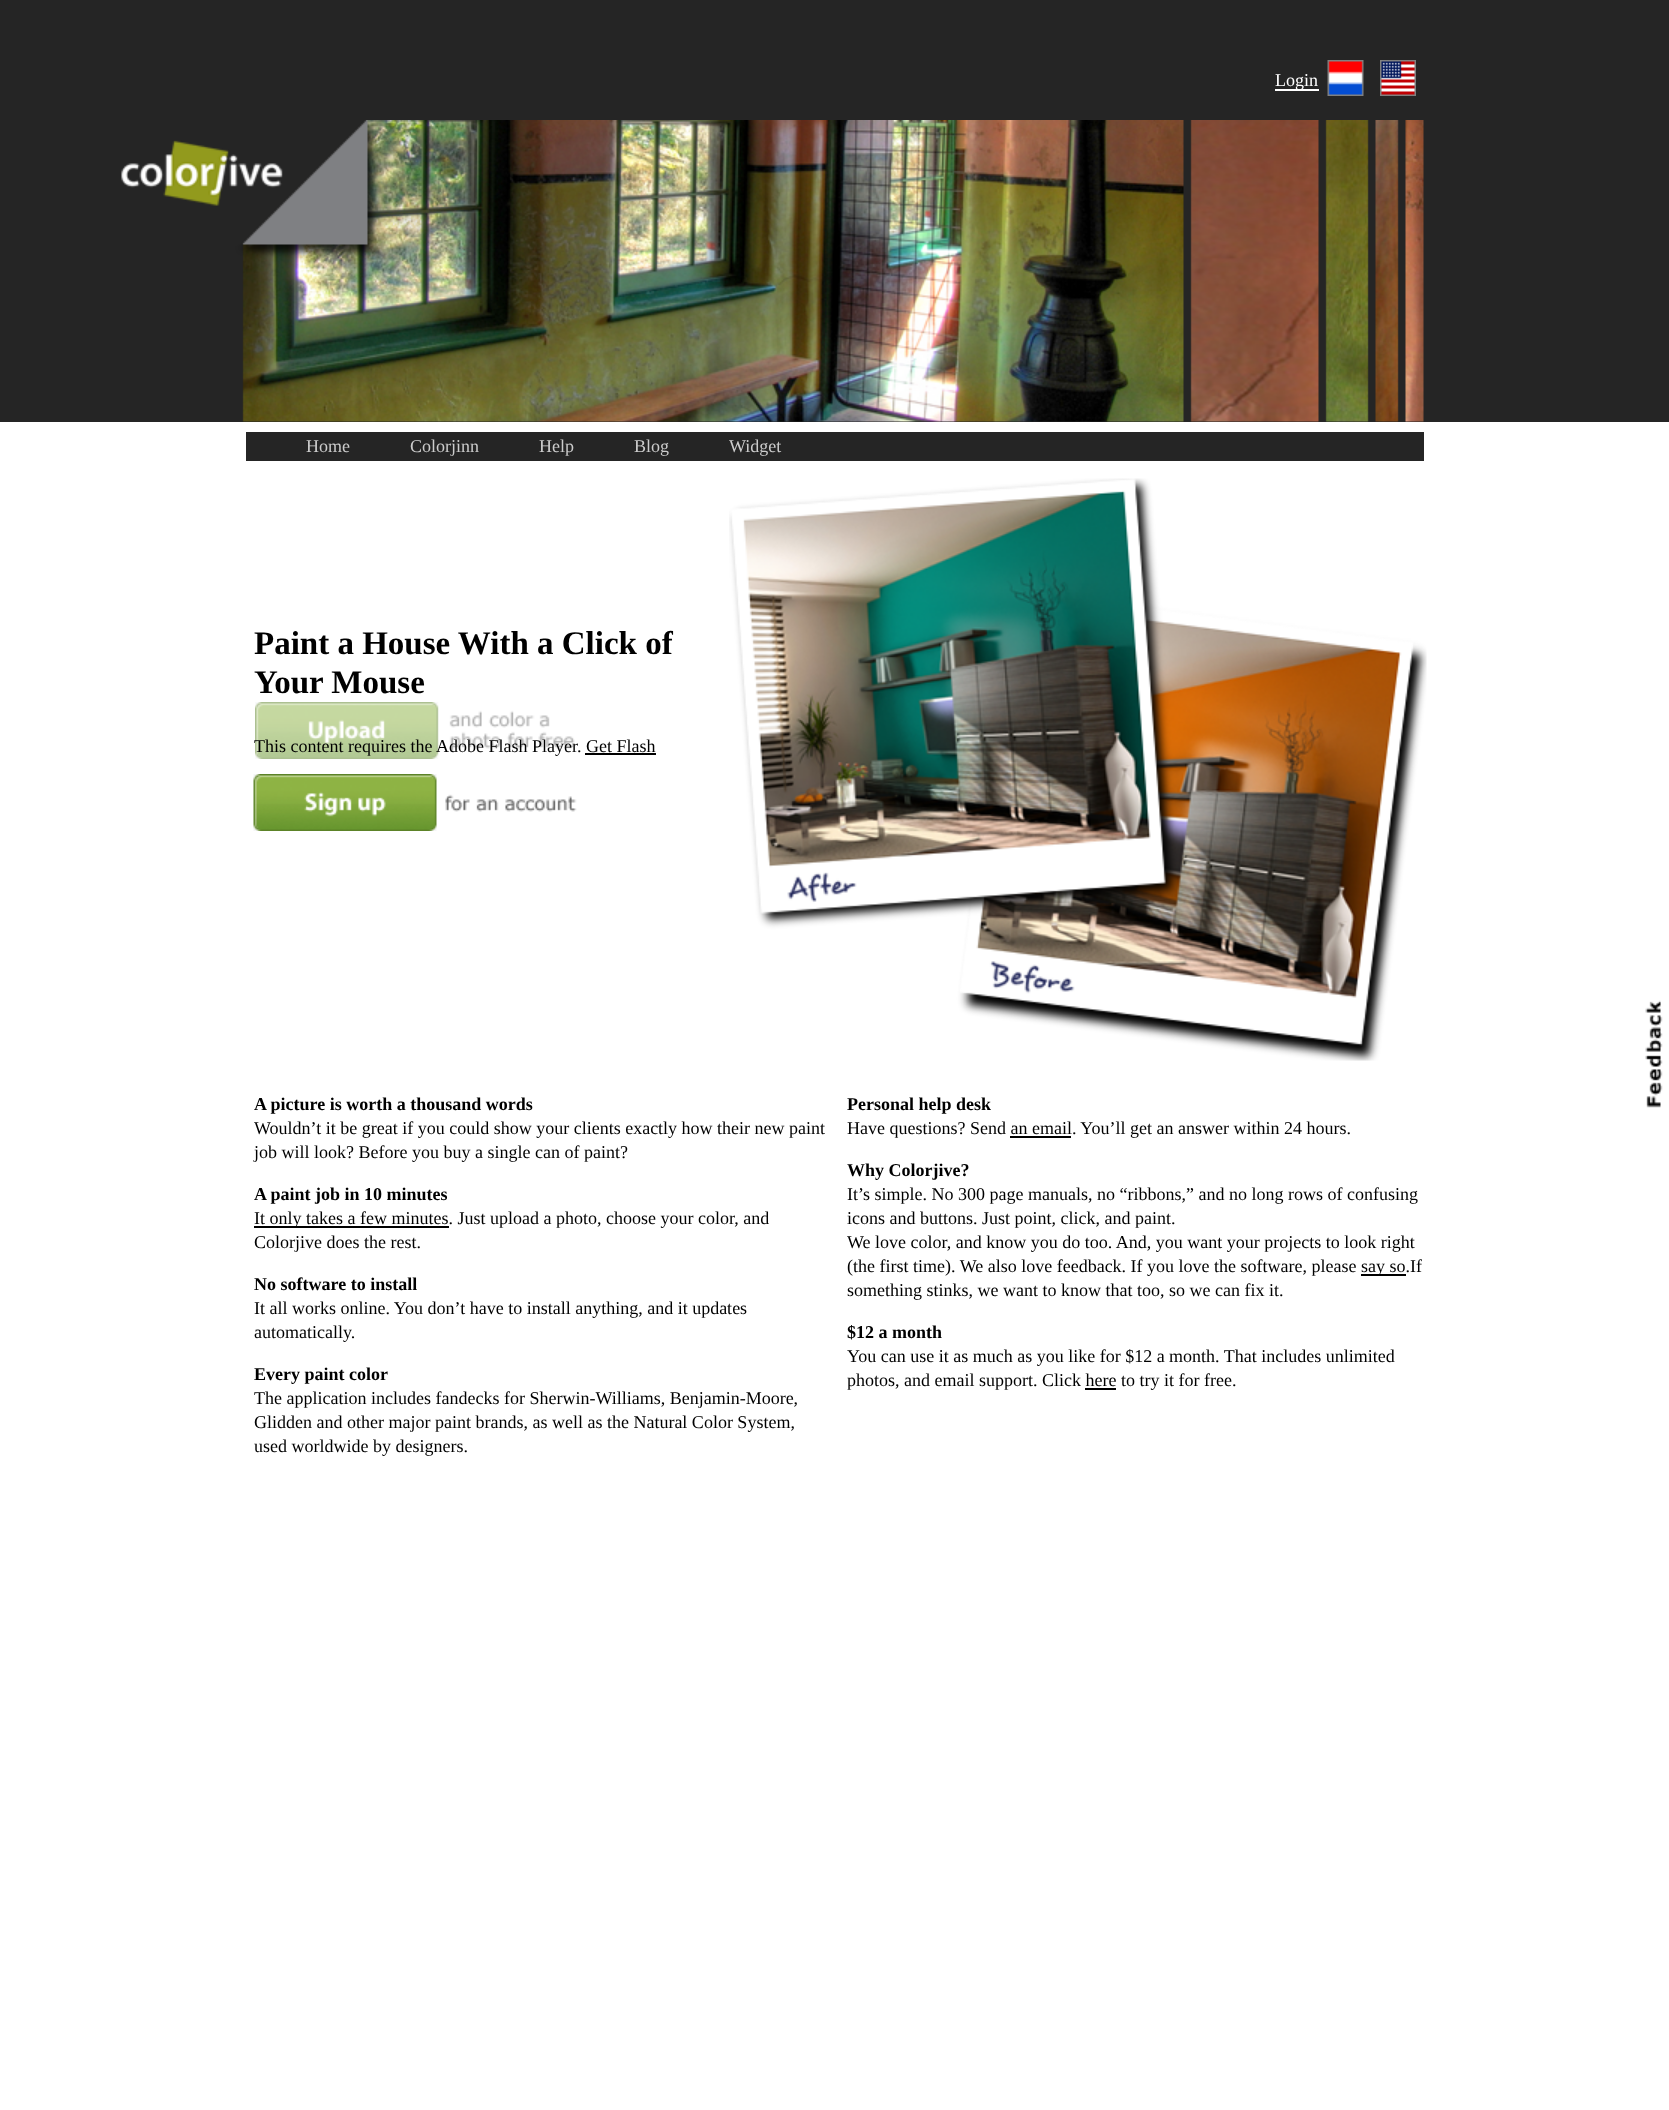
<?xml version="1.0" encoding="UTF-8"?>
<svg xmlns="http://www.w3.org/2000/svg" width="1669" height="2110">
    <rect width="100%" height="100%" fill="#FFFFFF"/>
    <rect x="0" y="0" width="1669" height="422" fill="#252525"/>
    <rect x="1275" y="89" width="44" height="2" fill="#FFFFFF"/>
    <text x="1275" y="86" font-family="Liberation Serif" font-size="18" fill="#FFFFFF">Login</text>
    <image x="1327" y="60" width="37" height="36" href="img_01.png"/>
    <image x="1380" y="60" width="36" height="36" href="img_02.png"/>
    <image x="121" y="120" width="1303" height="302" href="img_03.png"/>
    <rect x="246" y="432" width="1178" height="29" fill="#252525"/>
    <text x="306" y="452" font-family="Liberation Serif" font-size="18" fill="#CCCCCC">Home</text>
    <text x="410" y="452" font-family="Liberation Serif" font-size="18" fill="#CCCCCC">Colorjinn</text>
    <text x="539" y="452" font-family="Liberation Serif" font-size="18" fill="#CCCCCC">Help</text>
    <text x="634" y="452" font-family="Liberation Serif" font-size="18" fill="#CCCCCC">Blog</text>
    <text x="729" y="452" font-family="Liberation Serif" font-size="18" fill="#CCCCCC">Widget</text>
    <text font-family="Liberation Serif" font-size="33" font-weight="700" fill="#000000">
        <tspan x="254" y="654">Paint a House With a Click of</tspan>
        <tspan x="254" y="693">Your Mouse</tspan>
    </text>
    <image x="255" y="702" width="320" height="57" href="img_04.png"/>
    <text x="254" y="752" font-family="Liberation Serif" font-size="18" fill="#000000">This content requires the Adobe Flash Player. Get Flash</text>
    <rect x="585" y="753" width="71" height="2" fill="#000000"/>
    <image x="253" y="774" width="324" height="57" href="img_05.png"/>
    <image x="729" y="478" width="698" height="583" href="img_06.png"/>
    <text x="254" y="1110" font-family="Liberation Serif" font-size="18" font-weight="700" fill="#000000">A picture is worth a thousand words</text>
    <text font-family="Liberation Serif" font-size="18" fill="#000000">
        <tspan x="254" y="1134">Wouldn’t it be great if you could show your clients exactly how their new paint</tspan>
        <tspan x="254" y="1158">job will look? Before you buy a single can of paint?</tspan>
    </text>
    <text x="254" y="1200" font-family="Liberation Serif" font-size="18" font-weight="700" fill="#000000">A paint job in 10 minutes</text>
    <rect x="254" y="1226" width="195" height="2" fill="#000000"/>
    <text font-family="Liberation Serif" font-size="18" fill="#000000">
        <tspan x="254" y="1224">It only takes a few minutes. Just upload a photo, choose your color, and</tspan>
        <tspan x="254" y="1248">Colorjive does the rest.</tspan>
    </text>
    <text x="254" y="1290" font-family="Liberation Serif" font-size="18" font-weight="700" fill="#000000">No software to install</text>
    <text font-family="Liberation Serif" font-size="18" fill="#000000">
        <tspan x="254" y="1314">It all works online. You don’t have to install anything, and it updates</tspan>
        <tspan x="254" y="1338">automatically.</tspan>
    </text>
    <text x="254" y="1380" font-family="Liberation Serif" font-size="18" font-weight="700" fill="#000000">Every paint color</text>
    <text font-family="Liberation Serif" font-size="18" fill="#000000">
        <tspan x="254" y="1404">The application includes fandecks for Sherwin-Williams, Benjamin-Moore,</tspan>
        <tspan x="254" y="1428">Glidden and other major paint brands, as well as the Natural Color System,</tspan>
        <tspan x="254" y="1452">used worldwide by designers.</tspan>
    </text>
    <text x="847" y="1110" font-family="Liberation Serif" font-size="18" font-weight="700" fill="#000000">Personal help desk</text>
    <text x="847" y="1134" font-family="Liberation Serif" font-size="18" fill="#000000">Have questions? Send an email. You’ll get an answer within 24 hours.</text>
    <rect x="1010" y="1136" width="61" height="2" fill="#000000"/>
    <text x="847" y="1176" font-family="Liberation Serif" font-size="18" font-weight="700" fill="#000000">Why Colorjive?</text>
    <text font-family="Liberation Serif" font-size="18" fill="#000000">
        <tspan x="847" y="1200">It’s simple. No 300 page manuals, no “ribbons,” and no long rows of confusing</tspan>
        <tspan x="847" y="1224">icons and buttons. Just point, click, and paint.</tspan>
        <tspan x="847" y="1248">We love color, and know you do too. And, you want your projects to look right</tspan>
        <tspan x="847" y="1272">(the first time). We also love feedback. If you love the software, please</tspan>
    </text>
    <rect x="1361" y="1274" width="45" height="2" fill="#000000"/>
    <text x="1361" y="1272" font-family="Liberation Serif" font-size="18" fill="#000000">say so.If</text>
    <text x="847" y="1296" font-family="Liberation Serif" font-size="18" fill="#000000">something stinks, we want to know that too, so we can fix it.</text>
    <text x="847" y="1338" font-family="Liberation Serif" font-size="18" font-weight="700" fill="#000000">$12 a month</text>
    <text font-family="Liberation Serif" font-size="18" fill="#000000">
        <tspan x="847" y="1362">You can use it as much as you like for $12 a month. That includes unlimited</tspan>
        <tspan x="847" y="1386">photos, and email support. Click here to try it for free.</tspan>
    </text>
    <rect x="1085" y="1388" width="31" height="2" fill="#000000"/>
    <image x="1645" y="1000" width="18" height="108" href="img_07.png"/>
</svg>
